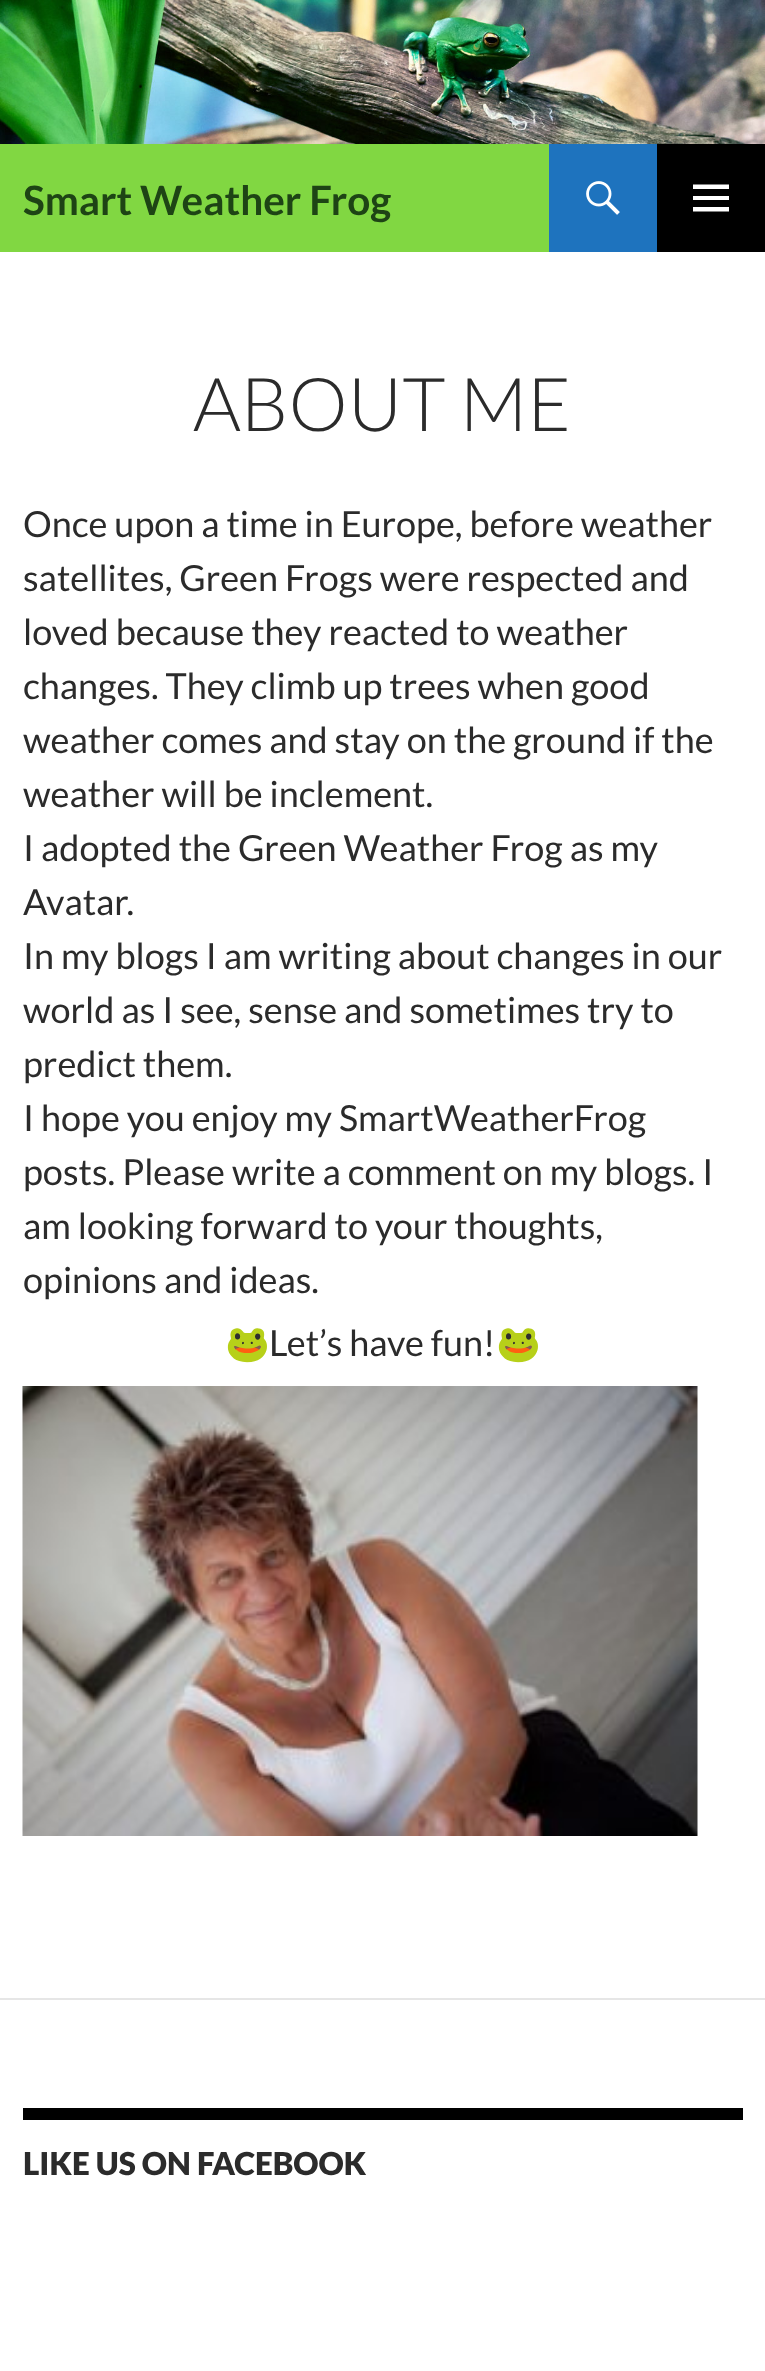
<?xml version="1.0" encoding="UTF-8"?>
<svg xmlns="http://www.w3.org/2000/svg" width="765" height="2371">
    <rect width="100%" height="100%" fill="#FFFFFF"/>
    <image x="0" y="0" width="765" height="144" href="img_01.png"/>
    <rect x="0" y="144" width="549" height="108" fill="#81D742"/>
    <text x="23" y="215" font-family="Lato" font-size="40.5" font-weight="700" fill="#1E4415">Smart Weather Frog</text>
    <rect x="549" y="144" width="108" height="108" fill="#1E73BE"/>
    <image x="586" y="181" width="34" height="34" href="img_02.png"/>
    <rect x="657" y="144" width="108" height="108" fill="#000000"/>
    <path d="M 693 211.5 V 207 H 729 V 211.5 Z M 693 200 V 196 H 729 V 200 Z M 693 189 V 184.5 H 729 V 189 Z" fill="#FFFFFF"/>
    <text x="193" y="431" font-family="Lato" font-size="74.25" font-weight="300" fill="#2B2B2B">ABOUT ME</text>
    <text font-family="Lato" font-size="36" fill="#2B2B2B">
        <tspan x="23" y="537">Once upon a time in Europe, before weather</tspan>
        <tspan x="23" y="591">satellites, Green Frogs were respected and</tspan>
        <tspan x="23" y="645">loved because they reacted to weather</tspan>
        <tspan x="23" y="699">changes. They climb up trees when good</tspan>
        <tspan x="23" y="753">weather comes and stay on the ground if the</tspan>
        <tspan x="23" y="807">weather will be inclement.</tspan>
        <tspan x="23" y="861">I adopted the Green Weather Frog as my</tspan>
        <tspan x="23" y="915">Avatar.</tspan>
        <tspan x="23" y="969">In my blogs I am writing about changes in our</tspan>
        <tspan x="23" y="1023">world as I see, sense and sometimes try to</tspan>
        <tspan x="23" y="1077">predict them.</tspan>
        <tspan x="23" y="1131">I hope you enjoy my SmartWeatherFrog</tspan>
        <tspan x="23" y="1185">posts. Please write a comment on my blogs. I</tspan>
        <tspan x="23" y="1239">am looking forward to your thoughts,</tspan>
        <tspan x="23" y="1293">opinions and ideas.</tspan>
    </text>
    <text x="225" y="1356" font-family="Noto Color Emoji" font-size="36" fill="#2B2B2B">🐸</text>
    <text x="269" y="1356" font-family="Lato" font-size="36" fill="#2B2B2B">Let’s have fun!</text>
    <text x="496" y="1356" font-family="Noto Color Emoji" font-size="36" fill="#2B2B2B">🐸</text>
    <image x="22" y="1386" width="676" height="450" href="img_03.png"/>
    <rect x="0" y="1998" width="765" height="2" fill="#E6E6E6"/>
    <rect x="23" y="2108" width="720" height="12" fill="#000000"/>
    <text x="23" y="2175" font-family="Lato" font-size="31.5" font-weight="900" fill="#2B2B2B">LIKE US ON FACEBOOK</text>
</svg>
